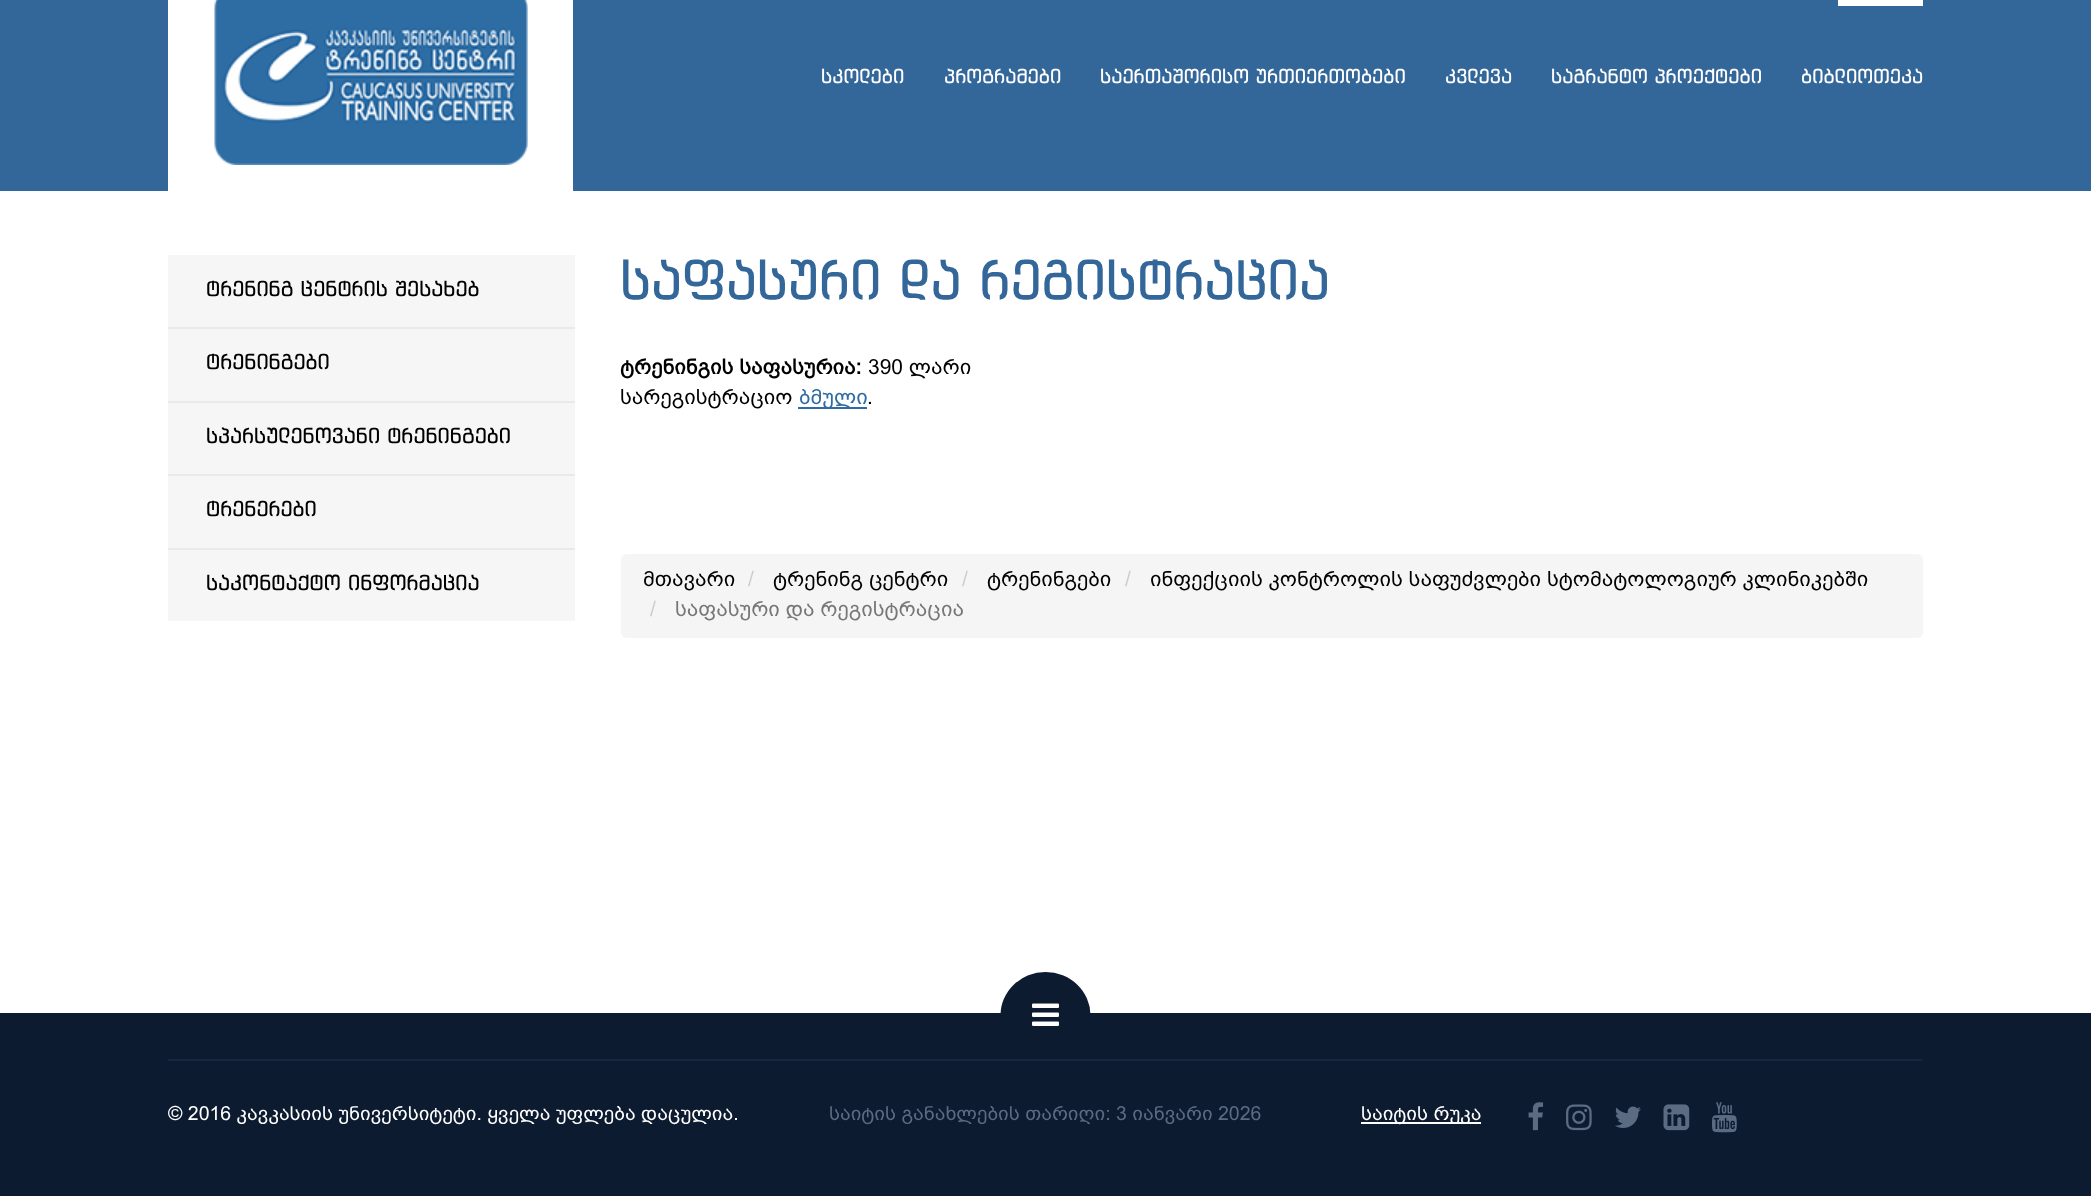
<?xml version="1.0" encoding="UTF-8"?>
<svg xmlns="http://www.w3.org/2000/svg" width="2091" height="1196">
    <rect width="100%" height="100%" fill="#336699"/>
    <rect x="168" y="0" width="405" height="191" fill="#FFFFFF"/>
    <image x="214" y="0" width="314" height="165" href="img_01.png"/>
    <rect x="1838" y="0" width="85" height="6" fill="#FFFFFF"/>
    <text x="821" y="83" font-family="'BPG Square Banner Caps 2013'" font-size="19.5" fill="#FFFFFF">სკოლები</text>
    <text x="944" y="83" font-family="'BPG Square Banner Caps 2013'" font-size="19.5" fill="#FFFFFF">პროგრამები</text>
    <text x="1100" y="83" font-family="'BPG Square Banner Caps 2013'" font-size="19.5" fill="#FFFFFF">საერთაშორისო ურთიერთობები</text>
    <text x="1445" y="83" font-family="'BPG Square Banner Caps 2013'" font-size="19.5" fill="#FFFFFF">კვლევა</text>
    <text x="1551" y="83" font-family="'BPG Square Banner Caps 2013'" font-size="19.5" fill="#FFFFFF">საგრანტო პროექტები</text>
    <text x="1801" y="83" font-family="'BPG Square Banner Caps 2013'" font-size="19.5" fill="#FFFFFF">ბიბლიოთეკა</text>
    <rect x="0" y="191" width="2091" height="822" fill="#FFFFFF"/>
    <rect x="168" y="255" width="407" height="366" fill="#F6F6F6"/>
    <rect x="168" y="327" width="407" height="2" fill="#EAEAEA"/>
    <text x="206" y="296" font-family="'BPG Square Banner Caps 2013'" font-size="21" fill="#000000">ტრენინგ ცენტრის შესახებ</text>
    <rect x="168" y="401" width="407" height="2" fill="#EAEAEA"/>
    <text x="206" y="369" font-family="'BPG Square Banner Caps 2013'" font-size="21" fill="#000000">ტრენინგები</text>
    <rect x="168" y="474" width="407" height="2" fill="#EAEAEA"/>
    <text x="206" y="443" font-family="'BPG Square Banner Caps 2013'" font-size="21" fill="#000000">სპარსულენოვანი ტრენინგები</text>
    <rect x="168" y="548" width="407" height="2" fill="#EAEAEA"/>
    <text x="206" y="516" font-family="'BPG Square Banner Caps 2013'" font-size="21" fill="#000000">ტრენერები</text>
    <text x="206" y="590" font-family="'BPG Square Banner Caps 2013'" font-size="21" fill="#000000">საკონტაქტო ინფორმაცია</text>
    <text x="620" y="299" font-family="'BPG Square Banner Caps 2013'" font-size="54" fill="#336699">საფასური და რეგისტრაცია</text>
    <text x="620" y="374" font-family="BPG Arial" font-size="21" font-weight="700" fill="#000000">ტრენინგის საფასურია:</text>
    <text x="868" y="374" font-family="BPG Arial" font-size="21" fill="#000000">390 ლარი</text>
    <text x="620" y="404" font-family="BPG Arial" font-size="21" fill="#000000">სარეგისტრაციო</text>
    <rect x="798" y="407" width="69" height="2" fill="#306CA2"/>
    <text x="799" y="404" font-family="BPG Arial" font-size="21" fill="#306CA2">ბმული</text>
    <text x="867" y="404" font-family="BPG Arial" font-size="21" fill="#000000">.</text>
    <rect x="621" y="554" width="1302" height="84" rx="6" fill="#F5F5F5"/>
    <text x="643" y="586" font-family="BPG Arial" font-size="21" fill="#000000">მთავარი</text>
    <text x="748" y="586" font-family="BPG Arial" font-size="21" fill="#CCCCCC">/</text>
    <text x="773" y="586" font-family="BPG Arial" font-size="21" fill="#000000">ტრენინგ ცენტრი</text>
    <text x="962" y="586" font-family="BPG Arial" font-size="21" fill="#CCCCCC">/</text>
    <text x="987" y="586" font-family="BPG Arial" font-size="21" fill="#000000">ტრენინგები</text>
    <text x="1125" y="586" font-family="BPG Arial" font-size="21" fill="#CCCCCC">/</text>
    <text x="1150" y="586" font-family="BPG Arial" font-size="21" fill="#000000">ინფექციის კონტროლის საფუძვლები სტომატოლოგიურ კლინიკებში</text>
    <text x="650" y="616" font-family="BPG Arial" font-size="21" fill="#CCCCCC">/</text>
    <text x="675" y="616" font-family="BPG Arial" font-size="21" fill="#777777">საფასური და რეგისტრაცია</text>
    <rect x="0" y="1013" width="2091" height="183" fill="#0C1B30"/>
    <ellipse cx="1045.5" cy="1015.5" rx="45" ry="43.5" fill="#0C1B30"/>
    <image x="1032" y="1003" width="27" height="23" href="img_02.png"/>
    <rect x="168" y="1059" width="1755" height="2" fill="#16263E"/>
    <text x="168" y="1120" font-family="BPG Arial" font-size="19.5" fill="#FFFFFF">© 2016 კავკასიის უნივერსიტეტი. ყველა უფლება დაცულია.</text>
    <text x="829" y="1120" font-family="BPG Arial" font-size="19.5" fill="#5A6B82">საიტის განახლების თარიღი: 3 იანვარი 2026</text>
    <rect x="1361" y="1122" width="120" height="2" fill="#FFFFFF"/>
    <text x="1361" y="1120" font-family="BPG Arial" font-size="19.5" fill="#FFFFFF">საიტის რუკა</text>
    <image x="1528" y="1102" width="16" height="29" href="img_03.png"/>
    <image x="1566" y="1104" width="26" height="27" href="img_04.png"/>
    <image x="1615" y="1106" width="26" height="22" href="img_05.png"/>
    <image x="1663" y="1104" width="27" height="27" href="img_06.png"/>
    <image x="1712" y="1102" width="25" height="31" href="img_07.png"/>
</svg>
